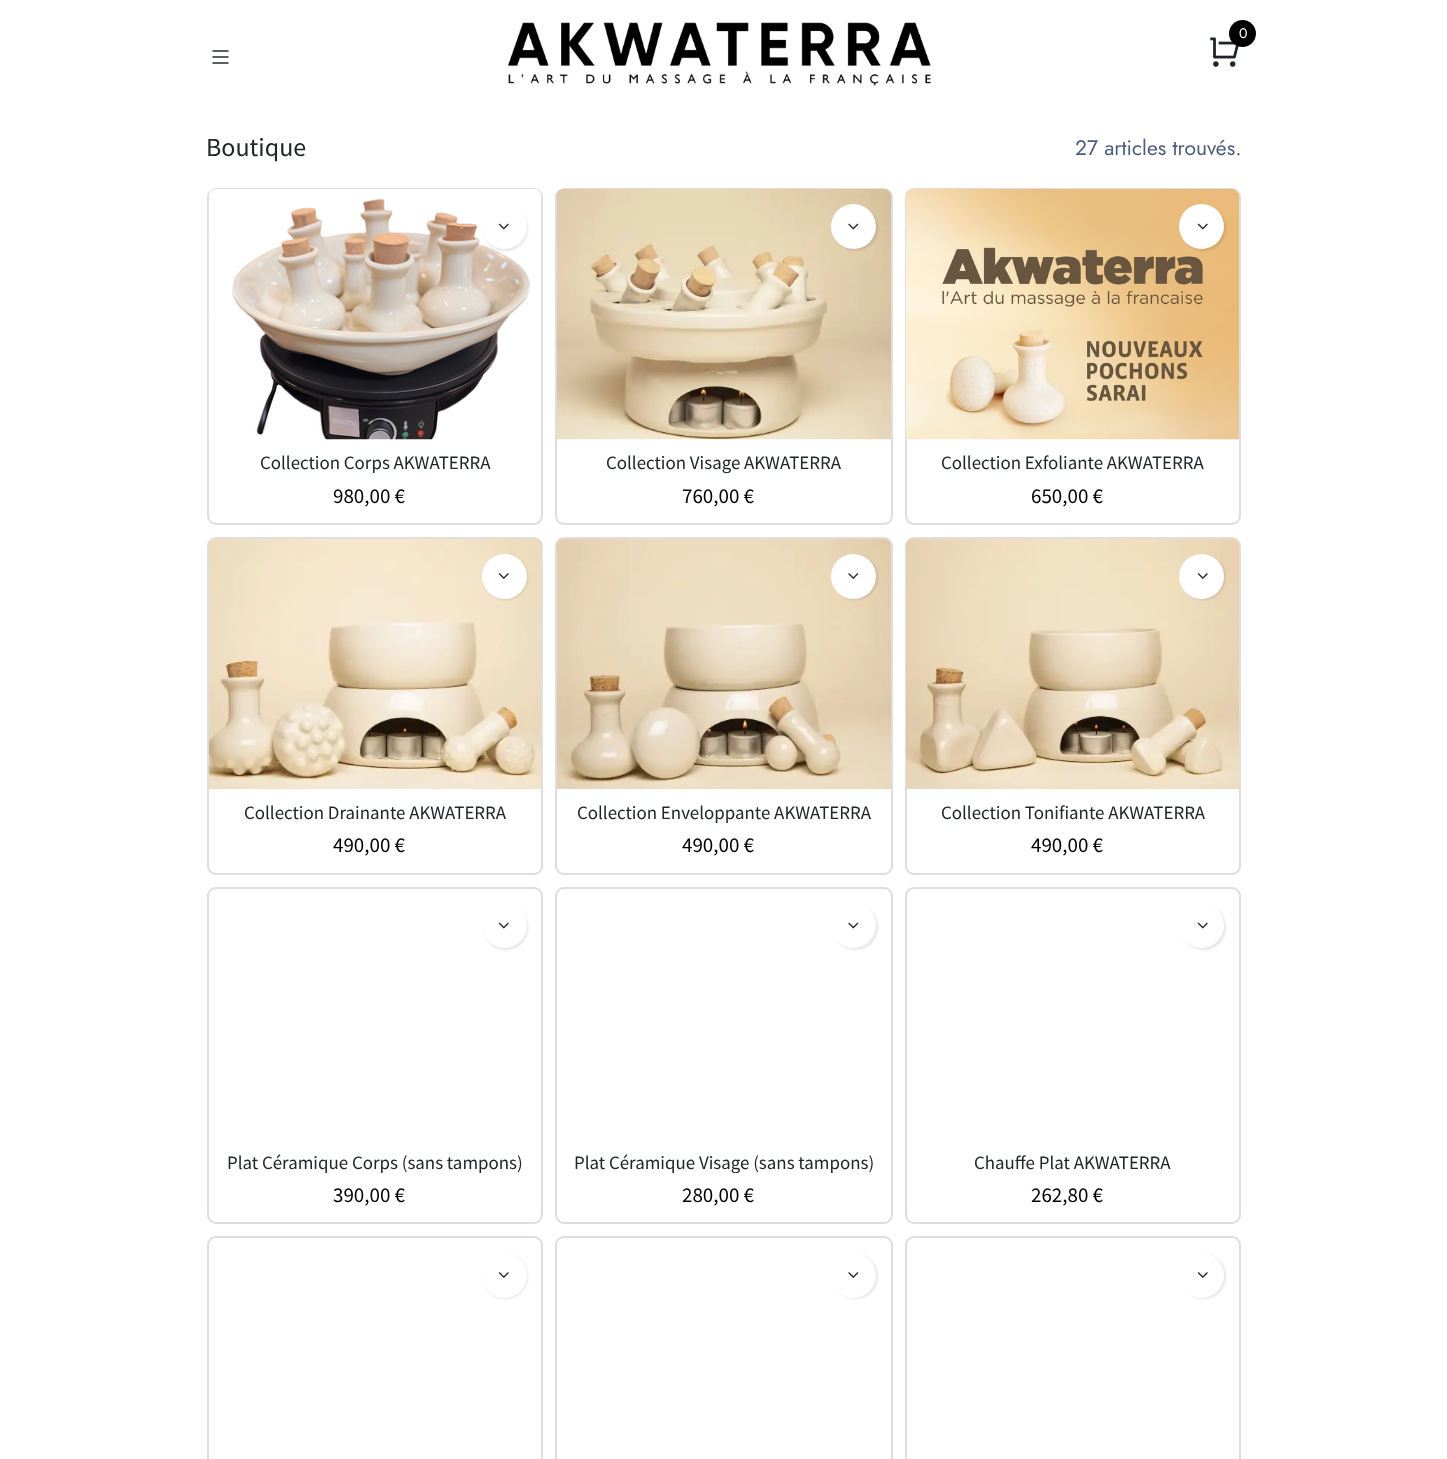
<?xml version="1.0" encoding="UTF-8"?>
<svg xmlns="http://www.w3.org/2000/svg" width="1447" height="1459">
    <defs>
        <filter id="blur1" x="-50%" y="-200%" width="200%" height="500%"><feGaussianBlur stdDeviation="1"/></filter>
        <clipPath id="clip1"><rect x="569" y="1151" width="310" height="22"/></clipPath>
    </defs>
    <rect width="100%" height="100%" fill="#FFFFFF"/>
    <image x="507" y="22" width="424" height="64" href="img_01.png"/>
    <image x="1210" y="37" width="29" height="30" href="img_02.png"/>
    <circle cx="1242.5" cy="33.5" r="13.5" fill="#000000"/>
    <text x="1239" y="38" font-family="Jost" font-size="14" fill="#FFFFFF">0</text>
    <image x="212" y="50" width="17" height="14" href="img_03.png"/>
    <text x="206" y="156" font-family="Source Sans Pro" font-size="26" fill="#212529">Boutique</text>
    <text x="1075" y="155" font-family="Jost" font-size="21" fill="#4D5B7C">27 articles trouvés.</text>
    <rect x="208" y="189" width="334" height="335" rx="8" fill="none" stroke="#DEDEDF" stroke-width="2"/>
    <image x="208" y="189" width="334" height="251" href="img_04.png"/>
    <rect x="483" y="206" width="45" height="45" rx="22.5" fill="#000000" fill-opacity="0.1" filter="url(#blur1)"/>
    <circle cx="504.5" cy="226.5" r="22.5" fill="#FFFFFF"/>
    <image x="498" y="223" width="11" height="7" href="img_05.png"/>
    <text x="260" y="469" font-family="Source Sans Pro" font-size="18.9" fill="#212529">Collection Corps AKWATERRA</text>
    <text x="333" y="503" font-family="Source Sans Pro" font-size="21" fill="#000000">980,00 €</text>
    <rect x="556" y="189" width="336" height="335" rx="8" fill="none" stroke="#DEDEDF" stroke-width="2"/>
    <image x="556" y="189" width="335" height="251" href="img_06.png"/>
    <rect x="833" y="206" width="45" height="45" rx="22.5" fill="#000000" fill-opacity="0.1" filter="url(#blur1)"/>
    <circle cx="853.5" cy="226.5" r="22.5" fill="#FFFFFF"/>
    <image x="848" y="223" width="11" height="7" href="img_07.png"/>
    <text x="606" y="469" font-family="Source Sans Pro" font-size="18.9" fill="#212529">Collection Visage AKWATERRA</text>
    <text x="682" y="503" font-family="Source Sans Pro" font-size="21" fill="#000000">760,00 €</text>
    <rect x="906" y="189" width="334" height="335" rx="8" fill="none" stroke="#DEDEDF" stroke-width="2"/>
    <image x="906" y="189" width="333" height="251" href="img_08.png"/>
    <rect x="1181" y="206" width="45" height="45" rx="22.5" fill="#000000" fill-opacity="0.1" filter="url(#blur1)"/>
    <circle cx="1201.5" cy="226.5" r="22.5" fill="#FFFFFF"/>
    <image x="1197" y="223" width="11" height="7" href="img_05.png"/>
    <text x="941" y="469" font-family="Source Sans Pro" font-size="18.9" fill="#212529">Collection Exfoliante AKWATERRA</text>
    <text x="1031" y="503" font-family="Source Sans Pro" font-size="21" fill="#000000">650,00 €</text>
    <rect x="208" y="538" width="334" height="336" rx="8" fill="none" stroke="#DEDEDF" stroke-width="2"/>
    <image x="208" y="538" width="334" height="251" href="img_09.png"/>
    <rect x="483" y="555" width="45" height="45" rx="22.5" fill="#000000" fill-opacity="0.1" filter="url(#blur1)"/>
    <circle cx="504.5" cy="576.5" r="22.5" fill="#FFFFFF"/>
    <image x="498" y="573" width="11" height="6" href="img_10.png"/>
    <text x="244" y="819" font-family="Source Sans Pro" font-size="18.9" fill="#212529">Collection Drainante AKWATERRA</text>
    <text x="333" y="852" font-family="Source Sans Pro" font-size="21" fill="#000000">490,00 €</text>
    <rect x="556" y="538" width="336" height="336" rx="8" fill="none" stroke="#DEDEDF" stroke-width="2"/>
    <image x="556" y="538" width="335" height="251" href="img_11.png"/>
    <rect x="833" y="555" width="45" height="45" rx="22.5" fill="#000000" fill-opacity="0.1" filter="url(#blur1)"/>
    <circle cx="853.5" cy="576.5" r="22.5" fill="#FFFFFF"/>
    <image x="848" y="573" width="11" height="6" href="img_12.png"/>
    <text x="577" y="819" font-family="Source Sans Pro" font-size="18.9" fill="#212529">Collection Enveloppante AKWATERRA</text>
    <text x="682" y="852" font-family="Source Sans Pro" font-size="21" fill="#000000">490,00 €</text>
    <rect x="906" y="538" width="334" height="336" rx="8" fill="none" stroke="#DEDEDF" stroke-width="2"/>
    <image x="906" y="538" width="333" height="251" href="img_13.png"/>
    <rect x="1181" y="555" width="45" height="45" rx="22.5" fill="#000000" fill-opacity="0.1" filter="url(#blur1)"/>
    <circle cx="1201.5" cy="576.5" r="22.5" fill="#FFFFFF"/>
    <image x="1197" y="573" width="11" height="6" href="img_10.png"/>
    <text x="941" y="819" font-family="Source Sans Pro" font-size="18.9" fill="#212529">Collection Tonifiante AKWATERRA</text>
    <text x="1031" y="852" font-family="Source Sans Pro" font-size="21" fill="#000000">490,00 €</text>
    <rect x="208" y="888" width="334" height="335" rx="8" fill="none" stroke="#DEDEDF" stroke-width="2"/>
    <rect x="483" y="905" width="45" height="45" rx="22.5" fill="#000000" fill-opacity="0.1" filter="url(#blur1)"/>
    <circle cx="504.5" cy="925.5" r="22.5" fill="#FFFFFF"/>
    <image x="498" y="922" width="11" height="7" href="img_05.png"/>
    <text x="227" y="1169" font-family="Source Sans Pro" font-size="18.9" fill="#212529">Plat Céramique Corps (sans tampons)</text>
    <text x="333" y="1202" font-family="Source Sans Pro" font-size="21" fill="#000000">390,00 €</text>
    <rect x="556" y="888" width="336" height="335" rx="8" fill="none" stroke="#DEDEDF" stroke-width="2"/>
    <rect x="833" y="905" width="45" height="45" rx="22.5" fill="#000000" fill-opacity="0.1" filter="url(#blur1)"/>
    <circle cx="853.5" cy="925.5" r="22.5" fill="#FFFFFF"/>
    <image x="848" y="922" width="11" height="7" href="img_07.png"/>
    <g clip-path="url(#clip1)">
        <text x="574" y="1169" font-family="Source Sans Pro" font-size="18.9" fill="#212529">Plat Céramique Visage (sans tampons)</text>
    </g>
    <text x="682" y="1202" font-family="Source Sans Pro" font-size="21" fill="#000000">280,00 €</text>
    <rect x="906" y="888" width="334" height="335" rx="8" fill="none" stroke="#DEDEDF" stroke-width="2"/>
    <rect x="1181" y="905" width="45" height="45" rx="22.5" fill="#000000" fill-opacity="0.1" filter="url(#blur1)"/>
    <circle cx="1201.5" cy="925.5" r="22.5" fill="#FFFFFF"/>
    <image x="1197" y="922" width="11" height="7" href="img_05.png"/>
    <text x="974" y="1169" font-family="Source Sans Pro" font-size="18.9" fill="#212529">Chauffe Plat AKWATERRA</text>
    <text x="1031" y="1202" font-family="Source Sans Pro" font-size="21" fill="#000000">262,80 €</text>
    <rect x="208" y="1237" width="334" height="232" rx="8" fill="none" stroke="#DEDEDF" stroke-width="2"/>
    <rect x="483" y="1254" width="45" height="45" rx="22.5" fill="#000000" fill-opacity="0.1" filter="url(#blur1)"/>
    <circle cx="504.5" cy="1275.5" r="22.5" fill="#FFFFFF"/>
    <image x="498" y="1272" width="11" height="6" href="img_10.png"/>
    <rect x="556" y="1237" width="336" height="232" rx="8" fill="none" stroke="#DEDEDF" stroke-width="2"/>
    <rect x="833" y="1254" width="45" height="45" rx="22.5" fill="#000000" fill-opacity="0.1" filter="url(#blur1)"/>
    <circle cx="853.5" cy="1275.5" r="22.5" fill="#FFFFFF"/>
    <image x="848" y="1272" width="11" height="6" href="img_12.png"/>
    <rect x="906" y="1237" width="334" height="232" rx="8" fill="none" stroke="#DEDEDF" stroke-width="2"/>
    <rect x="1181" y="1254" width="45" height="45" rx="22.5" fill="#000000" fill-opacity="0.1" filter="url(#blur1)"/>
    <circle cx="1201.5" cy="1275.5" r="22.5" fill="#FFFFFF"/>
    <image x="1197" y="1272" width="11" height="6" href="img_10.png"/>
</svg>
